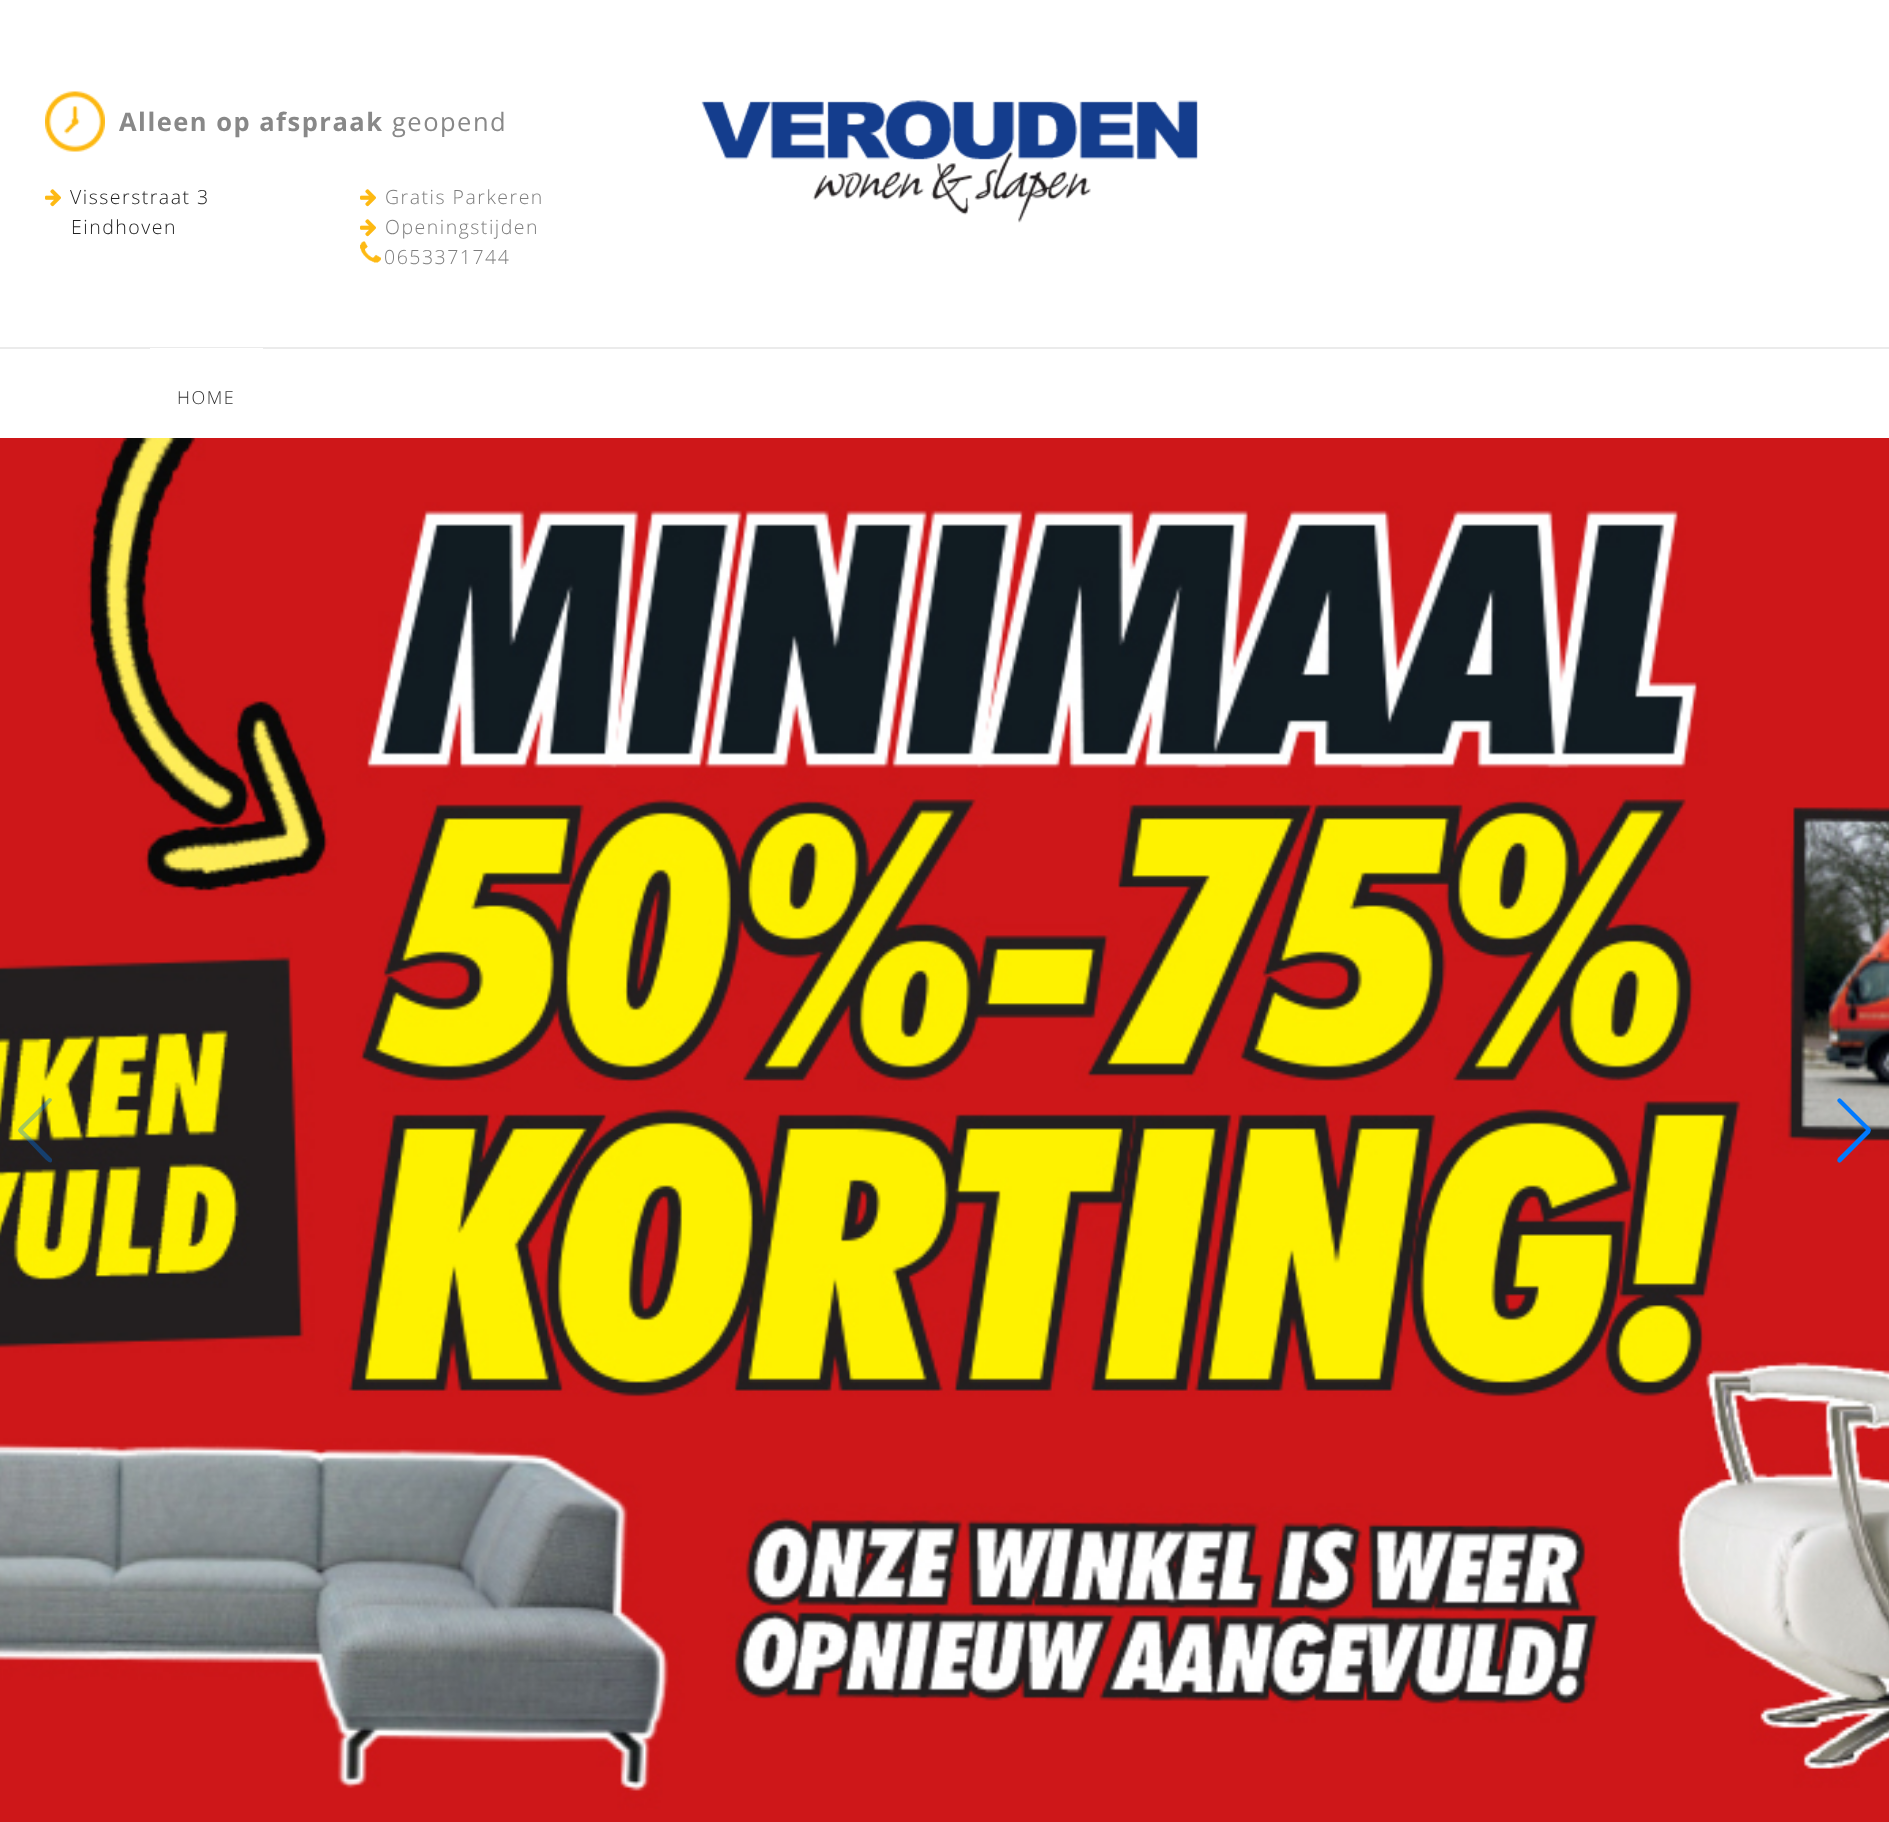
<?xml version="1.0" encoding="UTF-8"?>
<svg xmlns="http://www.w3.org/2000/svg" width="1889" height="1822">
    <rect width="100%" height="100%" fill="#FFFFFF"/>
    <image x="45" y="91" width="60" height="61" href="img_01.png"/>
    <text x="119" y="131" font-family="Open Sans" font-size="25.5" font-weight="700" letter-spacing="1.5" fill="#888888">Alleen op afspraak</text>
    <text x="392" y="131" font-family="Open Sans" font-size="25.5" letter-spacing="1.5" fill="#888888">geopend</text>
    <image x="45" y="189" width="16" height="18" href="img_02.png"/>
    <text x="70" y="204" font-family="Open Sans" font-size="19.5" font-weight="300" letter-spacing="1.5" fill="#222222">Visserstraat 3</text>
    <text x="71" y="234" font-family="Open Sans" font-size="19.5" font-weight="300" letter-spacing="1.5" fill="#222222">Eindhoven</text>
    <image x="360" y="189" width="16" height="18" href="img_02.png"/>
    <text x="385" y="204" font-family="Open Sans" font-size="19.5" font-weight="300" letter-spacing="1.5" fill="#7D7D7D">Gratis Parkeren</text>
    <image x="360" y="219" width="16" height="18" href="img_02.png"/>
    <text x="385" y="234" font-family="Open Sans" font-size="19.5" font-weight="300" letter-spacing="1.5" fill="#7D7D7D">Openingstijden</text>
    <image x="360" y="241" width="21" height="22" href="img_03.png"/>
    <text x="384" y="264" font-family="Open Sans" font-size="19.5" font-weight="300" letter-spacing="1.5" fill="#7D7D7D">0653371744</text>
    <image x="701" y="100" width="497" height="123" href="img_04.png"/>
    <rect x="0" y="347" width="1889" height="2" fill="#EBEBEB"/>
    <rect x="150" y="348" width="113" height="1" fill="#FFFFFF"/>
    <text x="177" y="404" font-family="Open Sans" font-size="18" font-weight="300" letter-spacing="1.5" fill="#333333">HOME</text>
    <image x="0" y="438" width="1889" height="1384" href="img_05.png"/>
    <path d="M 48 1099 C 49 1097 52 1098 52 1100 C 52 1102 26 1127 23 1130 L 52 1159 V 1161 C 51 1165 46 1160 43 1157 L 24 1137 C 16 1130 16 1131 24 1123 Z" fill="#007AFF" fill-opacity="0.35"/>
    <path d="M 1838 1162 C 1837 1161 1837 1160 1838 1158 L 1866 1130 L 1838 1102 C 1837 1101 1837 1100 1838 1099 C 1839 1098 1840 1098 1841 1099 L 1870 1128 L 1871 1130 L 1870 1133 L 1841 1162 C 1840 1163 1839 1163 1838 1162 Z" fill="#007AFF"/>
</svg>
